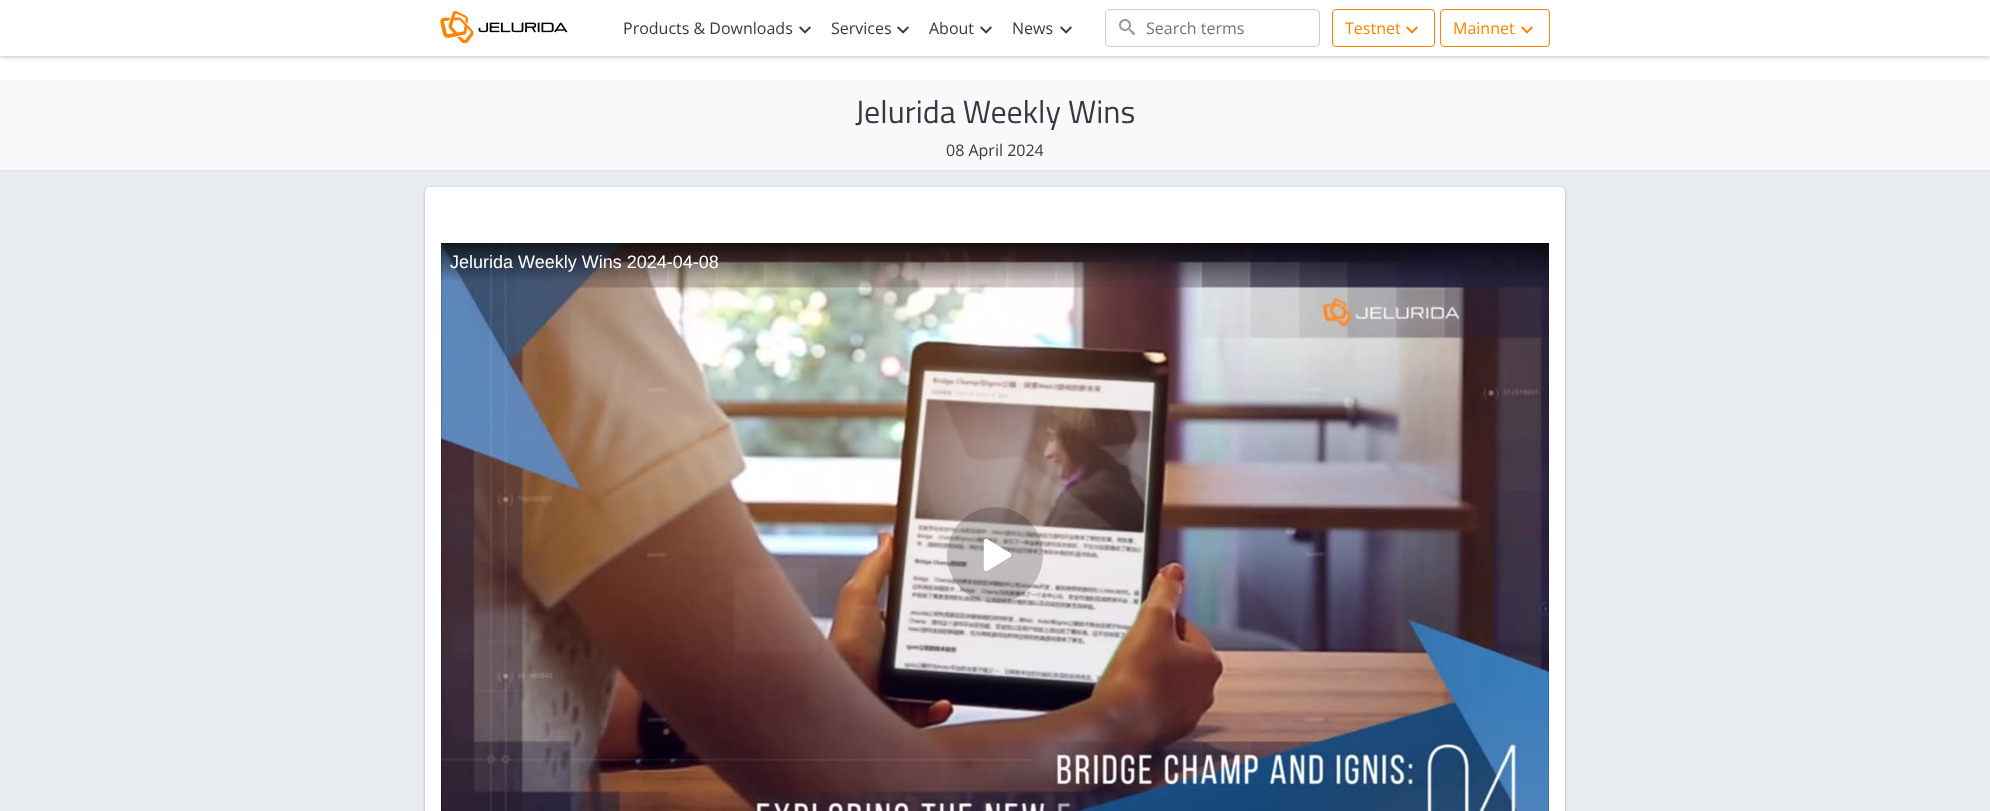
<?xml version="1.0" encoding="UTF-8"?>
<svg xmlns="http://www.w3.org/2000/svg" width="1990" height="811">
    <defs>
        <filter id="blur1" x="-50%" y="-200%" width="200%" height="500%"><feGaussianBlur stdDeviation="2.5"/></filter>
        <filter id="blur2" x="-50%" y="-200%" width="200%" height="500%"><feGaussianBlur stdDeviation="1.5"/></filter>
        <clipPath id="clip1"><rect x="979" y="539" width="32" height="32"/></clipPath>
    </defs>
    <rect width="100%" height="100%" fill="#FFFFFF"/>
    <rect x="0" y="1" width="1990" height="56" fill="#000000" fill-opacity="0.25" filter="url(#blur1)"/>
    <rect x="0" y="0" width="1990" height="56" fill="#FFFFFF"/>
    <image x="440" y="11" width="128" height="32" href="img_01.png"/>
    <text x="623" y="34" font-family="Open Sans" font-size="16" fill="#373A3C">Products &amp; Downloads</text>
    <image x="799" y="26" width="12" height="8" href="img_02.png"/>
    <text x="831" y="34" font-family="Open Sans" font-size="16" fill="#373A3C">Services</text>
    <image x="897" y="26" width="12" height="8" href="img_02.png"/>
    <text x="929" y="34" font-family="Open Sans" font-size="16" fill="#373A3C">About</text>
    <image x="980" y="26" width="12" height="8" href="img_02.png"/>
    <text x="1012" y="34" font-family="Open Sans" font-size="16" fill="#373A3C">News</text>
    <image x="1060" y="26" width="12" height="8" href="img_02.png"/>
    <rect x="1105.5" y="9.5" width="214" height="37" rx="4.5" fill="none" stroke="#CCCCCC"/>
    <image x="1119" y="19" width="16" height="16" href="img_03.png"/>
    <text x="1146" y="34" font-family="Open Sans" font-size="16" fill="#6C757D">Search terms</text>
    <rect x="1332.5" y="9.5" width="102" height="37" rx="3.5" fill="none" stroke="#FF8300"/>
    <text x="1345" y="34" font-family="Open Sans" font-size="16" fill="#FF8300">Testnet</text>
    <image x="1406" y="26" width="12" height="8" href="img_04.png"/>
    <rect x="1440.5" y="9.5" width="109" height="37" rx="3.5" fill="none" stroke="#FF8300"/>
    <text x="1453" y="34" font-family="Open Sans" font-size="16" fill="#FF8300">Mainnet</text>
    <image x="1521" y="26" width="12" height="8" href="img_04.png"/>
    <rect x="0" y="80" width="1990" height="90" fill="#F8F9FA"/>
    <rect x="0" y="170" width="1990" height="1" fill="#DEE2E6"/>
    <text x="855" y="123" font-family="Titillium Web" font-size="32" fill="#373A3C">Jelurida Weekly Wins</text>
    <text x="946" y="156" font-family="Open Sans" font-size="16" fill="#373A3C">08 April 2024</text>
    <rect x="0" y="171" width="1990" height="640" fill="#E9ECEF"/>
    <rect x="425" y="188" width="1140" height="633" rx="5" fill="#000000" fill-opacity="0.3" filter="url(#blur2)"/>
    <rect x="425" y="187" width="1140" height="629" rx="5" fill="#FFFFFF"/>
    <image x="441" y="243" width="1108" height="568" href="img_05.png"/>
    <text x="450" y="268" font-family="Liberation Sans" font-size="18" fill="#FFFFFF">Jelurida Weekly Wins 2024-04-08</text>
    <circle cx="995" cy="555" r="48" fill="#000000" fill-opacity="0.2"/>
    <path d="M 1009 555 L 986 541 V 569 Z" fill="#FFFFFF"/>
    <g clip-path="url(#clip1)">
        <path d="M 1009 555 L 986 541 V 569 Z" fill="none" stroke="#FFFFFF" stroke-width="4.4" stroke-linejoin="round"/>
    </g>
</svg>
